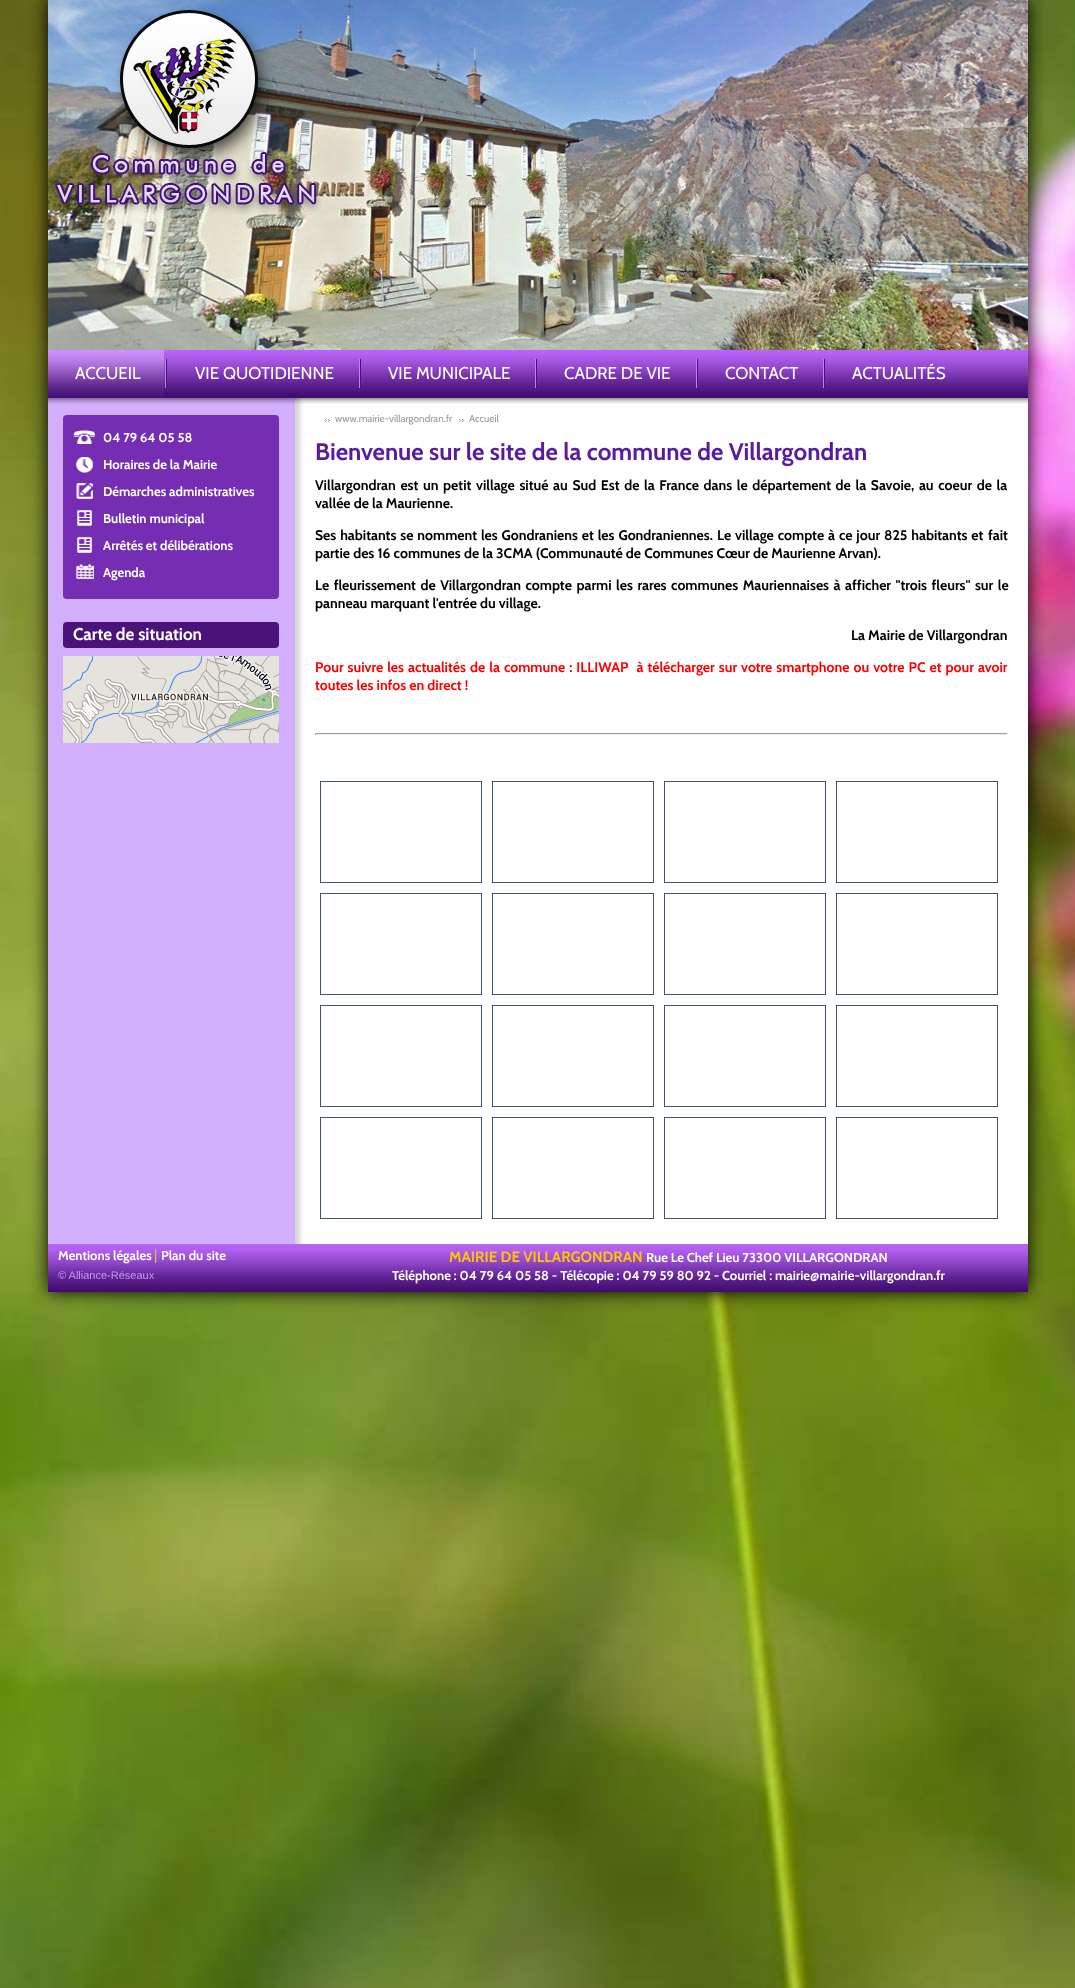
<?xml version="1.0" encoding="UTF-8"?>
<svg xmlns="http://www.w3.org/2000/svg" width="1075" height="1988">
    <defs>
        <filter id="blur1" x="-50%" y="-200%" width="200%" height="500%"><feGaussianBlur stdDeviation="9"/></filter>
    </defs>
    <rect width="100%" height="100%" fill="#FFFFFF"/>
    <image x="0" y="0" width="1075" height="1988" href="img_01.png"/>
    <rect x="48" y="0" width="980" height="350" fill="#000000" filter="url(#blur1)"/>
    <rect x="48" y="350" width="980" height="942" fill="#000000" filter="url(#blur1)"/>
    <image x="48" y="0" width="980" height="350" href="img_02.png"/>
    <image x="52" y="7" width="270" height="208" href="img_03.png"/>
    <image x="48" y="398" width="980" height="7" href="img_04.png"/>
    <image x="48" y="350" width="980" height="54" href="img_05.png"/>
    <image x="48" y="350" width="116" height="48" href="img_06.png"/>
    <image x="165" y="359" width="2" height="29" href="img_07.png"/>
    <text x="75" y="379" font-family="Cabin" font-size="17" fill="#FFFFFF">ACCUEIL</text>
    <image x="359" y="359" width="2" height="29" href="img_07.png"/>
    <text x="195" y="379" font-family="Cabin" font-size="17" fill="#FFFFFF">VIE QUOTIDIENNE</text>
    <image x="535" y="359" width="2" height="29" href="img_07.png"/>
    <text x="388" y="379" font-family="Cabin" font-size="17" fill="#FFFFFF">VIE MUNICIPALE</text>
    <image x="696" y="359" width="2" height="29" href="img_07.png"/>
    <text x="564" y="379" font-family="Cabin" font-size="17" fill="#FFFFFF">CADRE DE VIE</text>
    <image x="823" y="359" width="2" height="29" href="img_07.png"/>
    <text x="725" y="379" font-family="Cabin" font-size="17" fill="#FFFFFF">CONTACT</text>
    <text x="852" y="379" font-family="Cabin" font-size="17" fill="#FFFFFF">ACTUALITÉS</text>
    <image x="48" y="405" width="980" height="839" href="img_08.png"/>
    <rect x="63" y="415" width="216" height="184" rx="4" fill="#752EB3"/>
    <image x="73" y="430" width="22" height="14" href="img_09.png"/>
    <text x="103" y="442" font-family="Cabin" font-size="13" font-weight="700" fill="#FFFFFF">04 79 64 05 58</text>
    <image x="76" y="457" width="17" height="16" href="img_10.png"/>
    <text x="103" y="469" font-family="Cabin" font-size="13" font-weight="700" fill="#FFFFFF">Horaires de la Mairie</text>
    <image x="76" y="483" width="17" height="16" href="img_11.png"/>
    <text x="103" y="496" font-family="Cabin" font-size="13" font-weight="700" fill="#FFFFFF">Démarches administratives</text>
    <image x="77" y="510" width="15" height="16" href="img_12.png"/>
    <text x="103" y="523" font-family="Cabin" font-size="13" font-weight="700" fill="#FFFFFF">Bulletin municipal</text>
    <image x="77" y="537" width="15" height="16" href="img_12.png"/>
    <text x="103" y="550" font-family="Cabin" font-size="13" font-weight="700" fill="#FFFFFF">Arrêtés et délibérations</text>
    <image x="76" y="564" width="18" height="15" href="img_13.png"/>
    <text x="103" y="577" font-family="Cabin" font-size="13" font-weight="700" fill="#FFFFFF">Agenda</text>
    <rect x="63" y="622" width="216" height="26" rx="4" fill="#4A137A"/>
    <text x="73" y="640" font-family="Cabin" font-size="17" font-weight="700" fill="#FFFFFF">Carte de situation</text>
    <image x="63" y="656" width="216" height="87" href="img_14.png"/>
    <image x="325" y="419" width="5" height="3" href="img_15.png"/>
    <text x="335" y="422" font-family="Cabin" font-size="10" fill="#999999">www.mairie-villargondran.fr</text>
    <image x="459" y="419" width="5" height="3" href="img_15.png"/>
    <text x="469" y="422" font-family="Cabin" font-size="10" fill="#999999">Accueil</text>
    <text x="315" y="460" font-family="Cabin" font-size="24" font-weight="700" fill="#591AA2">Bienvenue sur le site de la commune de Villargondran</text>
    <text font-family="Cabin" font-size="14" font-weight="700" fill="#000000">
        <tspan x="315" y="490" word-spacing="1.5">Villargondran est un petit village situé au Sud Est de la France dans le département de la Savoie, au coeur de la</tspan>
        <tspan x="315" y="508">vallée de la Maurienne.</tspan>
    </text>
    <text x="315" y="540" word-spacing="0.75" font-family="Cabin" font-size="14" font-weight="700" fill="#000000">Ses habitants se nomment les Gondraniens et les Gondraniennes.</text>
    <text x="717" y="540" word-spacing="0.75" font-family="Cabin" font-size="14" font-weight="700" fill="#000000">Le village compte à ce jour 825 habitants et</text>
    <text x="988" y="540" font-family="Cabin" font-size="14" font-weight="700" fill="#000000">fait</text>
    <text x="315" y="558" font-family="Cabin" font-size="14" font-weight="700" fill="#000000">partie des 16 communes de la 3CMA (Communauté de Communes Cœur de Maurienne Arvan).</text>
    <text font-family="Cabin" font-size="14" font-weight="700" fill="#000000">
        <tspan x="315" y="590" word-spacing="1.4">Le fleurissement de Villargondran compte parmi les rares communes Mauriennaises à afficher "trois fleurs" sur le</tspan>
        <tspan x="315" y="608">panneau marquant l'entrée du village.</tspan>
    </text>
    <text x="851" y="640" font-family="Cabin" font-size="14" font-weight="700" fill="#000000">La Mairie de Villargondran</text>
    <text font-family="Cabin" font-size="14" font-weight="700" fill="#FF0000" xml:space="preserve"><tspan x="315" y="672" word-spacing="0.9">Pour suivre les actualités de la commune : ILLIWAP  à télécharger sur votre smartphone ou votre PC et pour avoir</tspan><tspan x="315" y="690">toutes les infos en direct !</tspan></text>
    <rect x="315" y="733" width="693" height="1" fill="#9F9F9F"/>
    <rect x="1007" y="733" width="1" height="2" fill="#EEEEEE"/>
    <rect x="315" y="734" width="693" height="1" fill="#EEEEEE"/>
    <rect x="315" y="733" width="1" height="2" fill="#9F9F9F"/>
    <rect x="320.5" y="781.5" width="161" height="101" fill="none" stroke="#435373"/>
    <rect x="492.5" y="781.5" width="161" height="101" fill="none" stroke="#435373"/>
    <rect x="664.5" y="781.5" width="161" height="101" fill="none" stroke="#435373"/>
    <rect x="836.5" y="781.5" width="161" height="101" fill="none" stroke="#435373"/>
    <rect x="320.5" y="893.5" width="161" height="101" fill="none" stroke="#435373"/>
    <rect x="492.5" y="893.5" width="161" height="101" fill="none" stroke="#435373"/>
    <rect x="664.5" y="893.5" width="161" height="101" fill="none" stroke="#435373"/>
    <rect x="836.5" y="893.5" width="161" height="101" fill="none" stroke="#435373"/>
    <rect x="320.5" y="1005.5" width="161" height="101" fill="none" stroke="#435373"/>
    <rect x="492.5" y="1005.5" width="161" height="101" fill="none" stroke="#435373"/>
    <rect x="664.5" y="1005.5" width="161" height="101" fill="none" stroke="#435373"/>
    <rect x="836.5" y="1005.5" width="161" height="101" fill="none" stroke="#435373"/>
    <rect x="320.5" y="1117.5" width="161" height="101" fill="none" stroke="#435373"/>
    <rect x="492.5" y="1117.5" width="161" height="101" fill="none" stroke="#435373"/>
    <rect x="664.5" y="1117.5" width="161" height="101" fill="none" stroke="#435373"/>
    <rect x="836.5" y="1117.5" width="161" height="101" fill="none" stroke="#435373"/>
    <image x="48" y="1244" width="980" height="48" href="img_16.png"/>
    <text x="58" y="1260" font-family="Cabin" font-size="13" font-weight="700" fill="#FFFFFF">Mentions légales</text>
    <text x="154" y="1260" font-family="Cabin" font-size="14" fill="#D0C43F">|</text>
    <text x="161" y="1260" font-family="Cabin" font-size="13" font-weight="700" fill="#FFFFFF">Plan du site</text>
    <text x="449" y="1262" font-family="Cabin" font-size="15" font-weight="700" fill="#FEC501">MAIRIE DE VILLARGONDRAN</text>
    <text x="646" y="1262" font-family="Cabin" font-size="13" font-weight="700" fill="#FFFFFF">Rue Le Chef Lieu 73300 VILLARGONDRAN</text>
    <text x="392" y="1280" font-family="Cabin" font-size="13" font-weight="700" fill="#FFFFFF">Téléphone : 04 79 64 05 58 - Télécopie : 04 79 59 80 92 - Courriel : mairie@mairie-villargondran.fr</text>
    <text x="58" y="1279" font-family="Liberation Sans" font-size="11" fill="#C299F1">© Alliance-Réseaux</text>
</svg>
